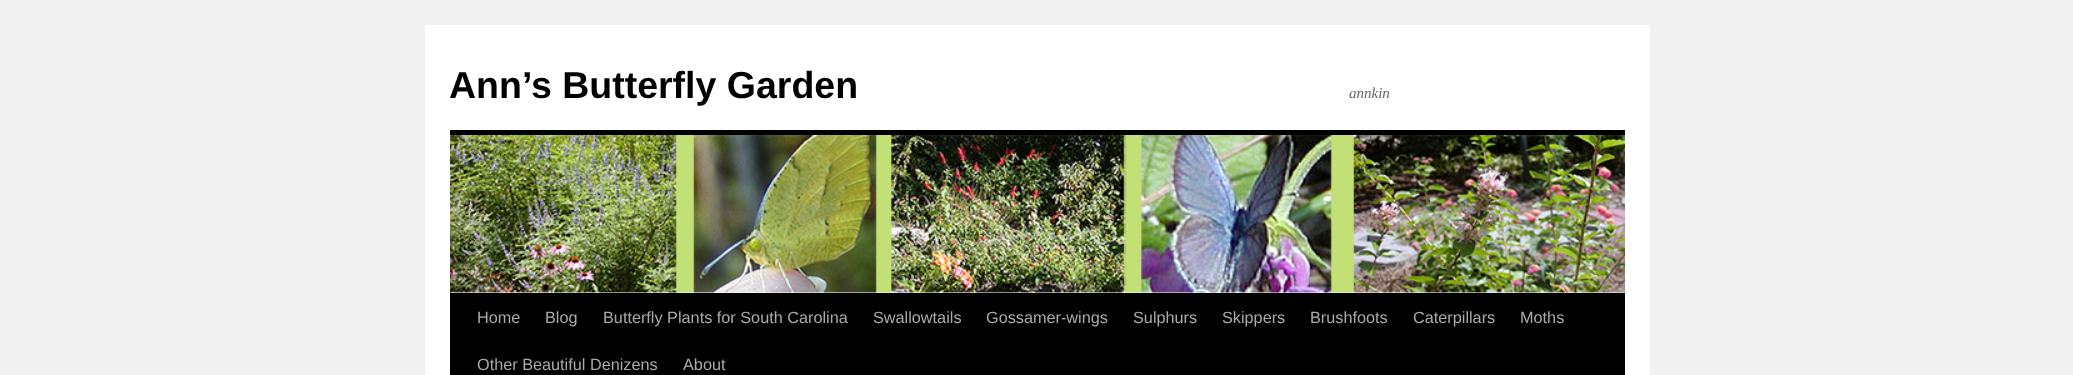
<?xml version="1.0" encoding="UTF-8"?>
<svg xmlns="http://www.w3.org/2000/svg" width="2073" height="375">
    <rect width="100%" height="100%" fill="#F1F1F1"/>
    <rect x="425" y="25" width="1225" height="350" fill="#FFFFFF"/>
    <text x="449" y="98" font-family="Liberation Sans" font-size="37.5" font-weight="700" fill="#000000">Ann’s Butterfly Garden</text>
    <text x="1349" y="98" font-family="Liberation Serif" font-size="15" font-style="italic" fill="#666666">annkin</text>
    <rect x="450" y="130" width="1175" height="5" fill="#000000"/>
    <rect x="450" y="293" width="1175" height="82" fill="#000000"/>
    <image x="450" y="135" width="1175" height="158" href="img_01.png"/>
    <text x="477" y="323" font-family="Liberation Sans" font-size="16.25" fill="#AAAAAA">Home</text>
    <text x="545" y="323" font-family="Liberation Sans" font-size="16.25" fill="#AAAAAA">Blog</text>
    <text x="603" y="323" font-family="Liberation Sans" font-size="16.25" fill="#AAAAAA">Butterfly Plants for South Carolina</text>
    <text x="873" y="323" font-family="Liberation Sans" font-size="16.25" fill="#AAAAAA">Swallowtails</text>
    <text x="986" y="323" font-family="Liberation Sans" font-size="16.25" fill="#AAAAAA">Gossamer-wings</text>
    <text x="1133" y="323" font-family="Liberation Sans" font-size="16.25" fill="#AAAAAA">Sulphurs</text>
    <text x="1222" y="323" font-family="Liberation Sans" font-size="16.25" fill="#AAAAAA">Skippers</text>
    <text x="1310" y="323" font-family="Liberation Sans" font-size="16.25" fill="#AAAAAA">Brushfoots</text>
    <text x="1413" y="323" font-family="Liberation Sans" font-size="16.25" fill="#AAAAAA">Caterpillars</text>
    <text x="1520" y="323" font-family="Liberation Sans" font-size="16.25" fill="#AAAAAA">Moths</text>
    <text x="477" y="370" font-family="Liberation Sans" font-size="16.25" fill="#AAAAAA">Other Beautiful Denizens</text>
    <text x="683" y="370" font-family="Liberation Sans" font-size="16.25" fill="#AAAAAA">About</text>
</svg>
